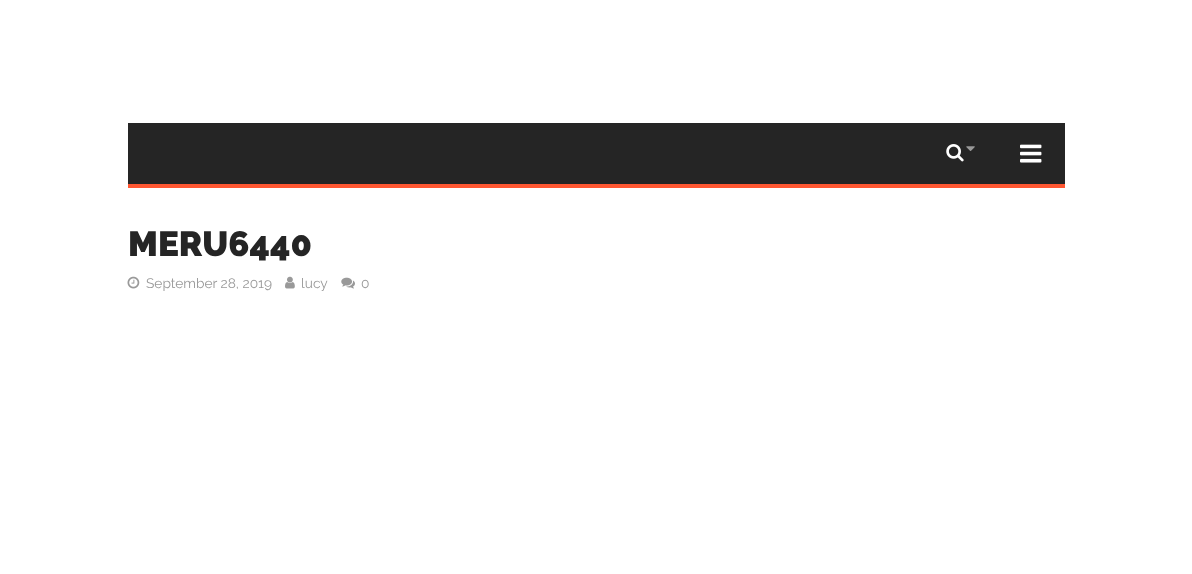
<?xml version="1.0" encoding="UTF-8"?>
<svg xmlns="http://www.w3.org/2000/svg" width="1192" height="574">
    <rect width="100%" height="100%" fill="#FFFFFF"/>
    <rect x="128" y="184" width="937" height="4" fill="#FF5732"/>
    <rect x="128" y="123" width="937" height="61" fill="#252525"/>
    <image x="946" y="144" width="18" height="18" href="img_01.png"/>
    <image x="966" y="146" width="9" height="5" href="img_02.png"/>
    <image x="1020" y="144" width="22" height="19" href="img_03.png"/>
    <text x="128" y="256" font-family="Raleway" font-size="35" font-weight="900" fill="#252525">MERU6440</text>
    <image x="127" y="276" width="13" height="13" href="img_04.png"/>
    <text x="146" y="288" font-family="Raleway" font-size="13.75" fill="#999999">September 28, 2019</text>
    <image x="285" y="276" width="10" height="13" href="img_05.png"/>
    <text x="301" y="288" font-family="Raleway" font-size="13.75" fill="#999999">lucy</text>
    <image x="341" y="277" width="14" height="12" href="img_06.png"/>
    <text x="361" y="288" font-family="Raleway" font-size="13.75" fill="#999999">0</text>
</svg>
